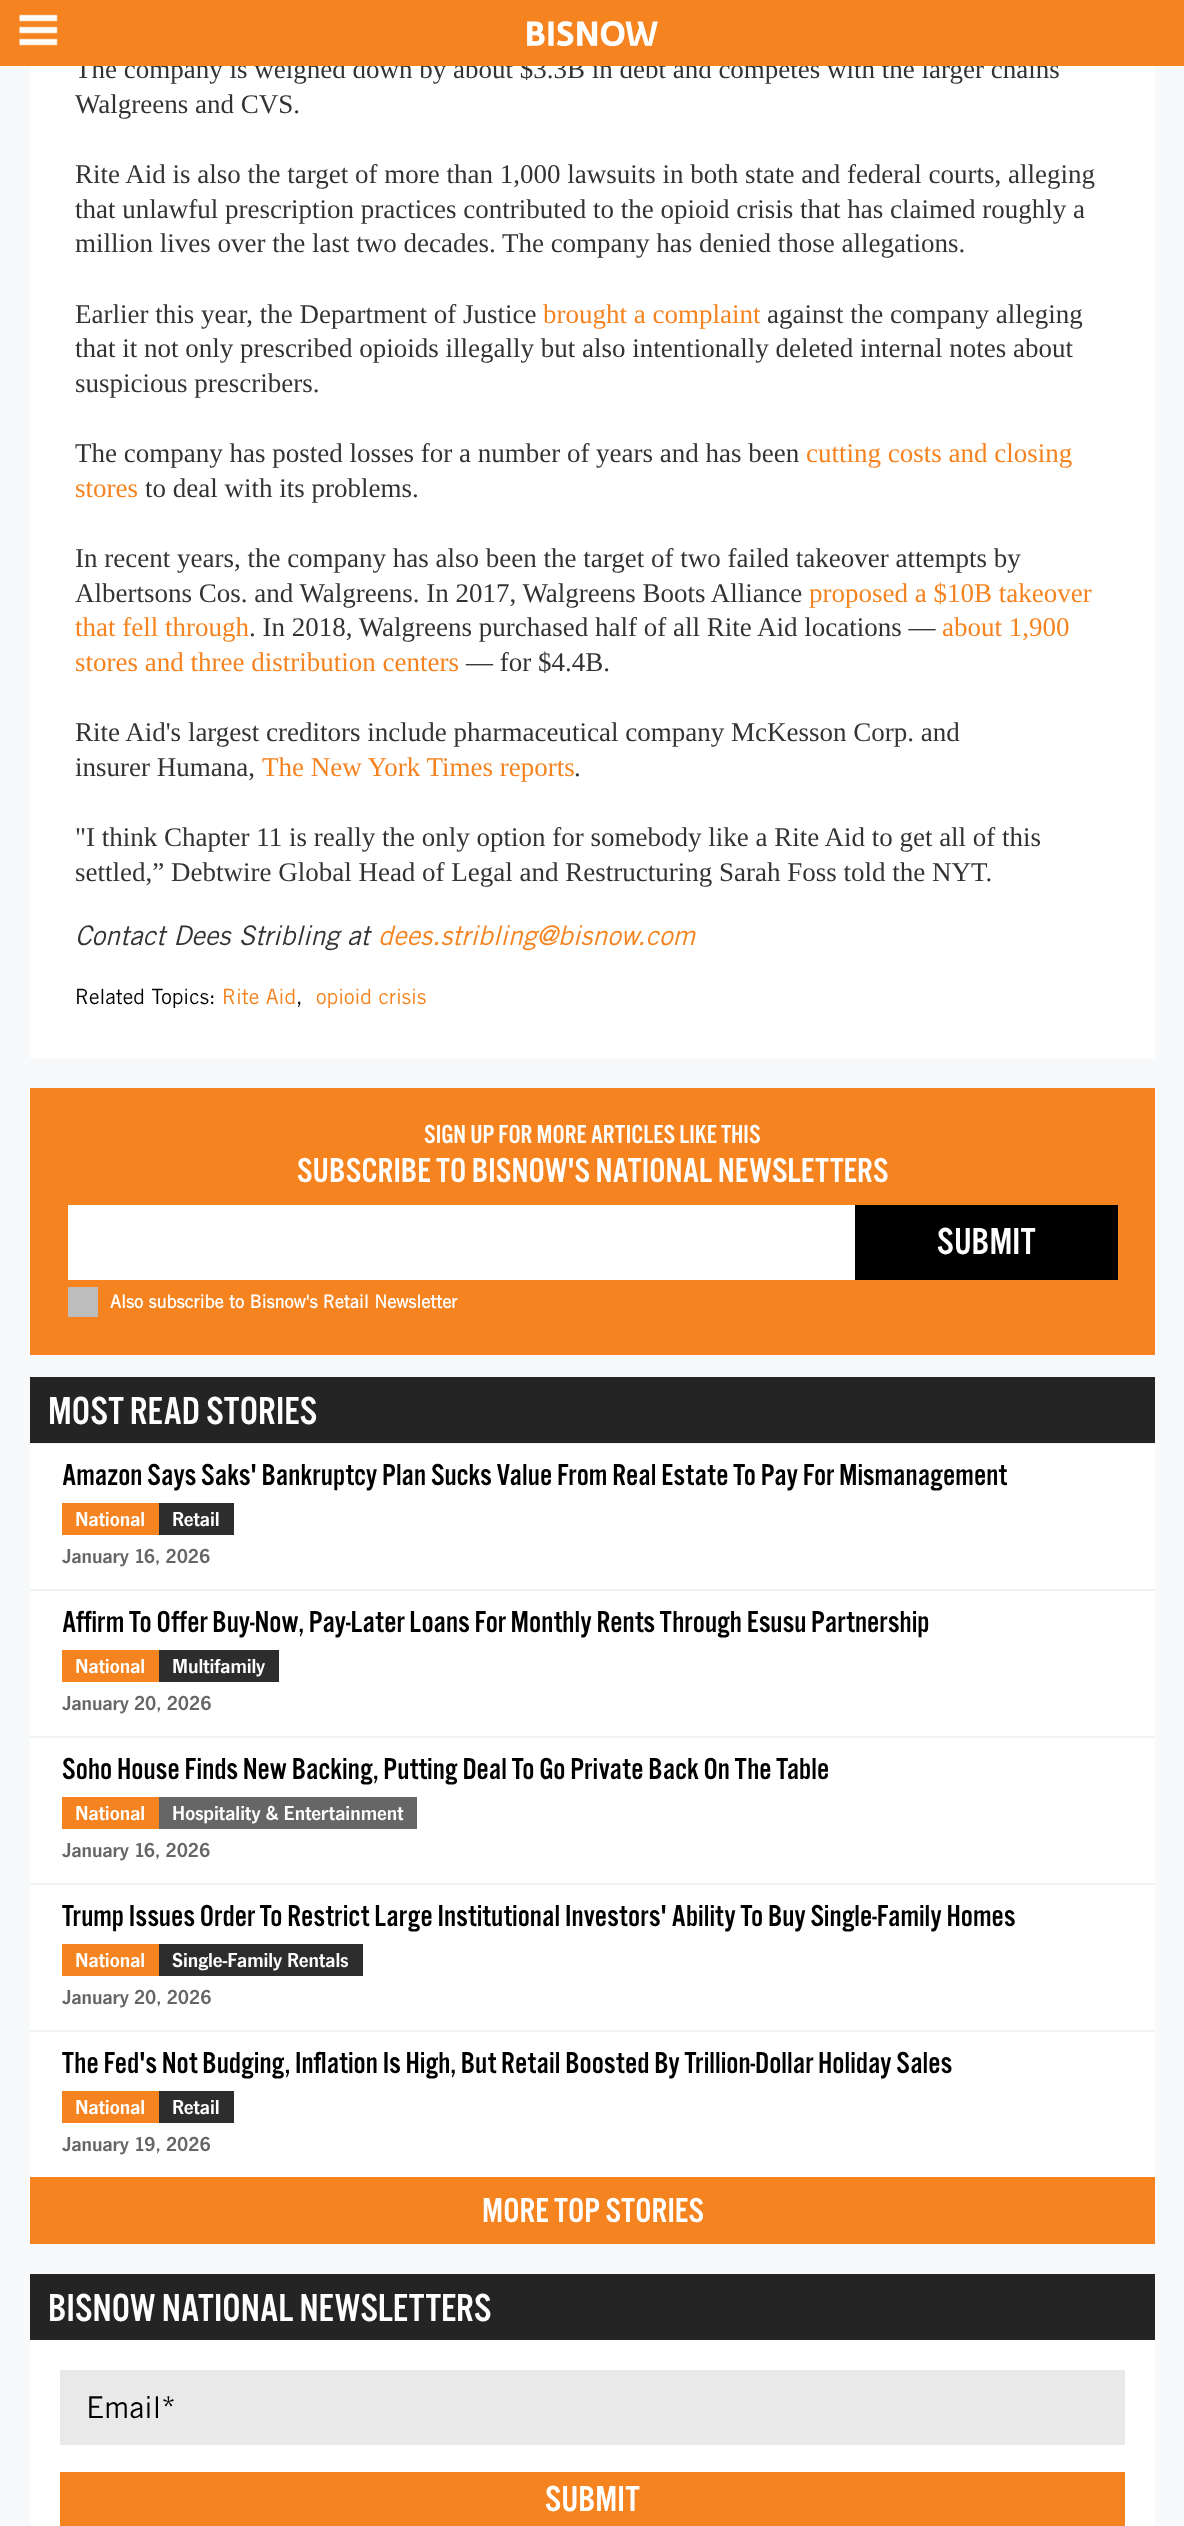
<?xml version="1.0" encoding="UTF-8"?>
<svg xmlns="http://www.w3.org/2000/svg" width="1184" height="2526">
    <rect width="100%" height="100%" fill="#F8F9FA"/>
    <rect x="30" y="66" width="1125" height="992" fill="#FFFFFF"/>
    <text x="75" y="78" font-family="Liberation Serif" font-size="27" fill="#333333">The company is weighed down by about $3.3B in debt and competes with the larger chains</text>
    <rect x="0" y="0" width="1184" height="66" fill="#F58320"/>
    <image x="19" y="14" width="39" height="32" href="img_01.png"/>
    <image x="527" y="21" width="131" height="26" href="img_02.png"/>
    <text x="75" y="113" font-family="Liberation Serif" font-size="27" fill="#333333">Walgreens and CVS.</text>
    <text font-family="Liberation Serif" font-size="27" fill="#333333">
        <tspan x="75" y="183">Rite Aid is also the target of more than 1,000 lawsuits in both state and federal courts, alleging</tspan>
        <tspan x="75" y="218">that unlawful prescription practices contributed to the opioid crisis that has claimed roughly a</tspan>
        <tspan x="75" y="252">million lives over the last two decades. The company has denied those allegations.</tspan>
    </text>
    <text x="75" y="323" font-family="Liberation Serif" font-size="27" fill="#333333">Earlier this year, the Department of Justice</text>
    <text x="543" y="323" font-family="Liberation Serif" font-size="27" fill="#F58320">brought a complaint</text>
    <text x="767" y="323" font-family="Liberation Serif" font-size="27" fill="#333333">against the company alleging</text>
    <text font-family="Liberation Serif" font-size="27" fill="#333333">
        <tspan x="75" y="357">that it not only prescribed opioids illegally but also intentionally deleted internal notes about</tspan>
        <tspan x="75" y="392">suspicious prescribers.</tspan>
    </text>
    <text x="75" y="462" font-family="Liberation Serif" font-size="27" fill="#333333">The company has posted losses for a number of years and has been</text>
    <text x="806" y="462" font-family="Liberation Serif" font-size="27" fill="#F58320">cutting costs and closing</text>
    <text x="75" y="497" font-family="Liberation Serif" font-size="27" fill="#F58320">stores</text>
    <text x="145" y="497" font-family="Liberation Serif" font-size="27" fill="#333333">to deal with its problems.</text>
    <text font-family="Liberation Serif" font-size="27" fill="#333333">
        <tspan x="75" y="567">In recent years, the company has also been the target of two failed takeover attempts by</tspan>
        <tspan x="75" y="602">Albertsons Cos. and Walgreens. In 2017, Walgreens Boots Alliance</tspan>
    </text>
    <text x="809" y="602" font-family="Liberation Serif" font-size="27" fill="#F58320">proposed a $10B takeover</text>
    <text x="75" y="636" font-family="Liberation Serif" font-size="27" fill="#F58320">that fell through</text>
    <text x="249" y="636" font-family="Liberation Serif" font-size="27" fill="#333333">. In 2018, Walgreens purchased half of all Rite Aid locations —</text>
    <text x="942" y="636" font-family="Liberation Serif" font-size="27" fill="#F58320">about 1,900</text>
    <text x="75" y="671" font-family="Liberation Serif" font-size="27" fill="#F58320">stores and three distribution centers</text>
    <text x="466" y="671" font-family="Liberation Serif" font-size="27" fill="#333333">— for $4.4B.</text>
    <text font-family="Liberation Serif" font-size="27" fill="#333333">
        <tspan x="75" y="741">Rite Aid's largest creditors include pharmaceutical company McKesson Corp. and</tspan>
        <tspan x="75" y="776">insurer Humana,</tspan>
    </text>
    <text x="262" y="776" font-family="Liberation Serif" font-size="27" fill="#F58320">The New York Times reports</text>
    <text x="574" y="776" font-family="Liberation Serif" font-size="27" fill="#333333">.</text>
    <text font-family="Liberation Serif" font-size="27" fill="#333333">
        <tspan x="75" y="846">"I think Chapter 11 is really the only option for somebody like a Rite Aid to get all of this</tspan>
        <tspan x="75" y="881">settled,” Debtwire Global Head of Legal and Restructuring Sarah Foss told the NYT.</tspan>
    </text>
    <text x="75" y="945" font-family="Trade Gothic" font-size="27" font-style="italic" fill="#333333">Contact Dees Stribling at</text>
    <text x="378" y="945" font-family="Trade Gothic" font-size="27" font-style="italic" fill="#F58320">dees.stribling@bisnow.com</text>
    <text x="75" y="1004" font-family="Trade Gothic" font-size="21" fill="#000000">Related Topics:</text>
    <text x="222" y="1004" font-family="Trade Gothic" font-size="21" fill="#F58320">Rite Aid</text>
    <text x="296" y="1004" font-family="Trade Gothic" font-size="21" fill="#000000">,</text>
    <text x="316" y="1004" font-family="Trade Gothic" font-size="21" fill="#F58320">opioid crisis</text>
    <rect x="30" y="1088" width="1125" height="267" fill="#F58320"/>
    <text x="424" y="1143" font-family="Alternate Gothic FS" font-size="27" fill="#FFFFFF">SIGN UP FOR MORE ARTICLES LIKE THIS</text>
    <text x="297" y="1182" font-family="Alternate Gothic FS" font-size="36" fill="#FFFFFF">SUBSCRIBE TO BISNOW'S NATIONAL NEWSLETTERS</text>
    <rect x="68" y="1205" width="787" height="75" fill="#FFFFFF"/>
    <rect x="855" y="1205" width="263" height="75" fill="#000000"/>
    <text x="937" y="1254" font-family="Alternate Gothic FS" font-size="39" fill="#FFFFFF">SUBMIT</text>
    <rect x="68" y="1287" width="30" height="30" fill="#BDBDBD"/>
    <text x="110" y="1308" font-family="Trade Gothic" font-size="18" font-weight="700" fill="#FFFFFF">Also subscribe to Bisnow's Retail Newsletter</text>
    <rect x="30" y="1444" width="1125" height="733" fill="#FFFFFF"/>
    <rect x="30" y="1377" width="1125" height="66" fill="#242424"/>
    <text x="48" y="1424" font-family="Alternate Gothic FS" font-size="40.5" fill="#FFFFFF">MOST READ STORIES</text>
    <rect x="30" y="1443" width="1125" height="1" fill="#F0F3F3"/>
    <text x="62" y="1485" font-family="Alternate Gothic FS" font-size="31.5" fill="#000000">Amazon Says Saks' Bankruptcy Plan Sucks Value From Real Estate To Pay For Mismanagement</text>
    <rect x="62" y="1503" width="97" height="32" fill="#F58320"/>
    <text x="75" y="1526" font-family="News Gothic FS" font-size="21" font-weight="600" fill="#FFFFFF">National</text>
    <rect x="159" y="1503" width="75" height="32" fill="#2D2D2D"/>
    <text x="172" y="1526" font-family="News Gothic FS" font-size="21" font-weight="600" fill="#FFFFFF">Retail</text>
    <text x="62" y="1563" font-family="News Gothic FS" font-size="21" font-weight="600" fill="#666666">January 16, 2026</text>
    <rect x="30" y="1589" width="1125" height="2" fill="#F0F3F3"/>
    <text x="62" y="1632" font-family="Alternate Gothic FS" font-size="31.5" fill="#000000">Affirm To Offer Buy-Now, Pay-Later Loans For Monthly Rents Through Esusu Partnership</text>
    <rect x="62" y="1650" width="97" height="32" fill="#F58320"/>
    <text x="75" y="1673" font-family="News Gothic FS" font-size="21" font-weight="600" fill="#FFFFFF">National</text>
    <rect x="159" y="1650" width="120" height="32" fill="#2D2D2D"/>
    <text x="172" y="1673" font-family="News Gothic FS" font-size="21" font-weight="600" fill="#FFFFFF">Multifamily</text>
    <text x="62" y="1710" font-family="News Gothic FS" font-size="21" font-weight="600" fill="#666666">January 20, 2026</text>
    <rect x="30" y="1736" width="1125" height="2" fill="#F0F3F3"/>
    <text x="62" y="1779" font-family="Alternate Gothic FS" font-size="31.5" fill="#000000">Soho House Finds New Backing, Putting Deal To Go Private Back On The Table</text>
    <rect x="62" y="1797" width="97" height="32" fill="#F58320"/>
    <text x="75" y="1820" font-family="News Gothic FS" font-size="21" font-weight="600" fill="#FFFFFF">National</text>
    <rect x="159" y="1797" width="258" height="32" fill="#666666"/>
    <text x="172" y="1820" font-family="News Gothic FS" font-size="21" font-weight="600" fill="#FFFFFF">Hospitality &amp; Entertainment</text>
    <text x="62" y="1857" font-family="News Gothic FS" font-size="21" font-weight="600" fill="#666666">January 16, 2026</text>
    <rect x="30" y="1883" width="1125" height="2" fill="#F0F3F3"/>
    <text x="62" y="1926" font-family="Alternate Gothic FS" font-size="31.5" fill="#000000">Trump Issues Order To Restrict Large Institutional Investors' Ability To Buy Single-Family Homes</text>
    <rect x="62" y="1944" width="97" height="32" fill="#F58320"/>
    <text x="75" y="1967" font-family="News Gothic FS" font-size="21" font-weight="600" fill="#FFFFFF">National</text>
    <rect x="159" y="1944" width="204" height="32" fill="#2D2D2D"/>
    <text x="172" y="1967" font-family="News Gothic FS" font-size="21" font-weight="600" fill="#FFFFFF">Single-Family Rentals</text>
    <text x="62" y="2004" font-family="News Gothic FS" font-size="21" font-weight="600" fill="#666666">January 20, 2026</text>
    <rect x="30" y="2030" width="1125" height="2" fill="#F0F3F3"/>
    <text x="62" y="2073" font-family="Alternate Gothic FS" font-size="31.5" fill="#000000">The Fed's Not Budging, Inflation Is High, But Retail Boosted By Trillion-Dollar Holiday Sales</text>
    <rect x="62" y="2091" width="97" height="32" fill="#F58320"/>
    <text x="75" y="2114" font-family="News Gothic FS" font-size="21" font-weight="600" fill="#FFFFFF">National</text>
    <rect x="159" y="2091" width="75" height="32" fill="#2D2D2D"/>
    <text x="172" y="2114" font-family="News Gothic FS" font-size="21" font-weight="600" fill="#FFFFFF">Retail</text>
    <text x="62" y="2151" font-family="News Gothic FS" font-size="21" font-weight="600" fill="#666666">January 19, 2026</text>
    <rect x="30" y="2177" width="1125" height="67" fill="#F58320"/>
    <text x="482" y="2222" font-family="Alternate Gothic FS" font-size="36" fill="#FFFFFF">MORE TOP STORIES</text>
    <rect x="30" y="2340" width="1125" height="186" fill="#FFFFFF"/>
    <rect x="30" y="2274" width="1125" height="66" fill="#242424"/>
    <text x="48" y="2321" font-family="Alternate Gothic FS" font-size="40.5" fill="#FFFFFF">BISNOW NATIONAL NEWSLETTERS</text>
    <rect x="60" y="2370" width="1065" height="75" fill="#E9E9E9"/>
    <text x="86" y="2418" font-family="Trade Gothic" font-size="30" fill="#000000">Email*</text>
    <rect x="60" y="2472" width="1065" height="54" fill="#F58320"/>
    <text x="545" y="2511" font-family="Alternate Gothic FS" font-size="37.5" fill="#FFFFFF">SUBMIT</text>
</svg>
